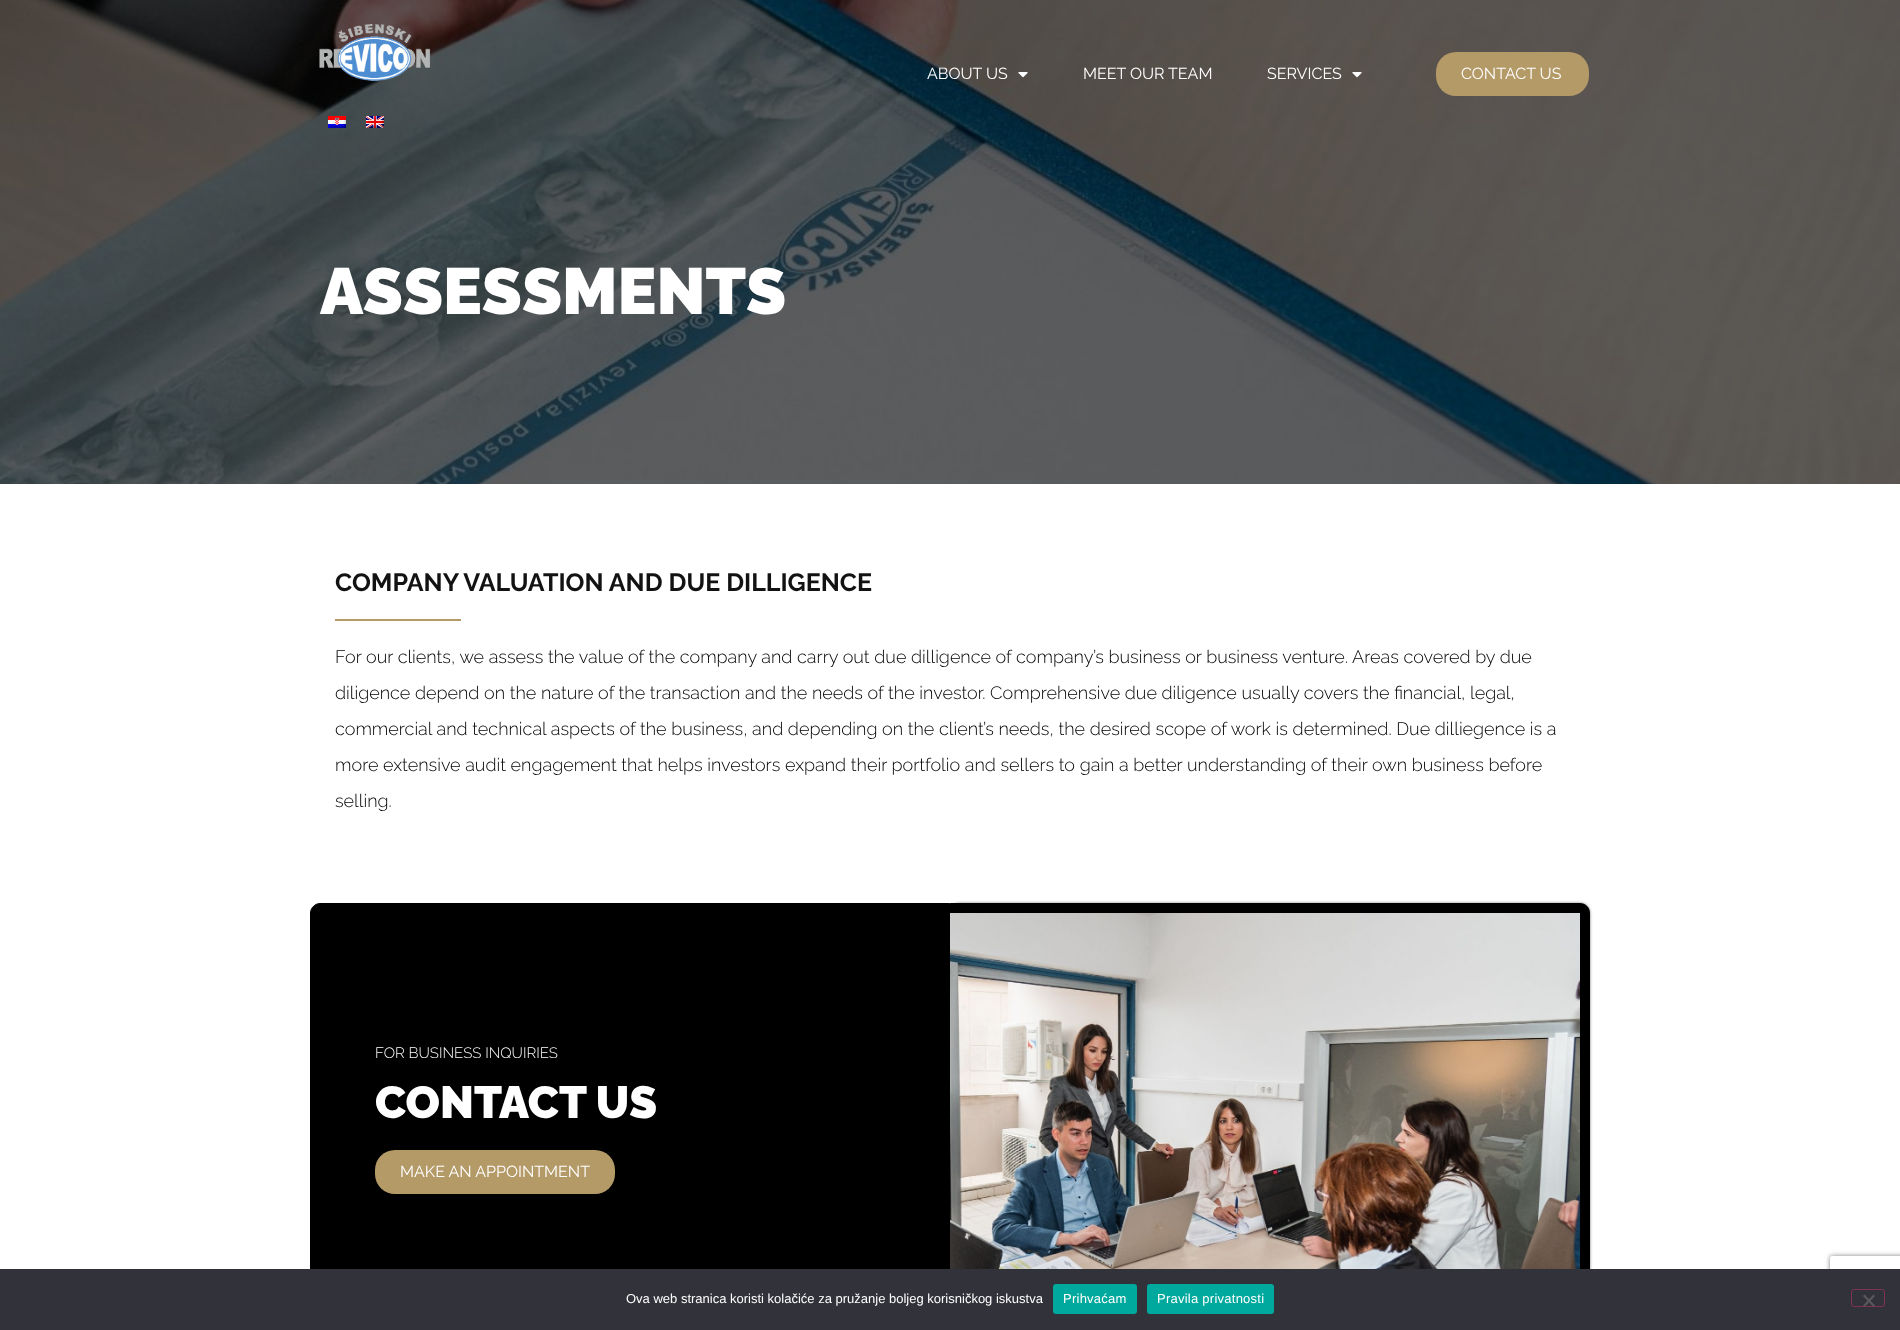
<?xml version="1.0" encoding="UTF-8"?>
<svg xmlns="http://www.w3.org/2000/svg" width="1900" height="1330">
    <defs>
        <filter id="blur1" x="-50%" y="-200%" width="200%" height="500%"><feGaussianBlur stdDeviation="1.5"/></filter>
        <clipPath id="clip1"><path d="M 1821 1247 H 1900 V 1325 H 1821 Z M 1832 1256 H 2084 C 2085 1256 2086 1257 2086 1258 V 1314 C 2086 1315 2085 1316 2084 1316 H 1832 C 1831 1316 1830 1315 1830 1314 V 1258 C 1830 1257 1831 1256 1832 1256 Z" clip-rule="evenodd"/></clipPath>
        <filter id="blur2" x="-50%" y="-200%" width="200%" height="500%"><feGaussianBlur stdDeviation="2.5"/></filter>
    </defs>
    <rect width="100%" height="100%" fill="#FFFFFF"/>
    <image x="0" y="0" width="1900" height="484" href="img_06.png"/>
    <image x="319" y="24" width="112" height="57" href="img_01.png"/>
    <image x="328" y="116" width="18" height="12" href="img_02.png"/>
    <image x="366" y="116" width="18" height="12" href="img_03.png"/>
    <text x="927" y="79" font-family="Raleway" font-size="16" fill="#FFFFFF">ABOUT US</text>
    <image x="1018" y="72" width="10" height="6" href="img_04.png"/>
    <text x="1083" y="79" font-family="Raleway" font-size="16" fill="#FFFFFF">MEET OUR TEAM</text>
    <text x="1267" y="79" font-family="Raleway" font-size="16" fill="#FFFFFF">SERVICES</text>
    <image x="1352" y="72" width="10" height="6" href="img_05.png"/>
    <rect x="1436" y="52" width="153" height="44" rx="20" fill="#B49A67"/>
    <text x="1461" y="79" font-family="Raleway" font-size="16" fill="#FFFFFF">CONTACT US</text>
    <text x="320" y="314" font-family="Raleway" font-size="65" font-weight="900" fill="#FFFFFF">ASSESSMENTS</text>
    <text x="335" y="591" font-family="Raleway" font-size="25" font-weight="700" fill="#121212">COMPANY VALUATION AND DUE DILLIGENCE</text>
    <rect x="335" y="619" width="126" height="2" fill="#B49A67"/>
    <text x="335" y="663" font-family="Raleway" font-size="18" font-weight="300" fill="#020202">For our clients, we assess the value of the company and carry out due dilligence of company’s business or business venture. Areas covered by due</text>
    <text x="335" y="699" font-family="Raleway" font-size="18" font-weight="300" fill="#020202">diligence depend on the nature of the transaction and the needs of the investor. Comprehensive due diligence usually covers the financial, legal,</text>
    <text x="335" y="735" font-family="Raleway" font-size="18" font-weight="300" fill="#020202">commercial and technical aspects of the business, and depending on the client’s needs, the desired scope of work is determined. Due dilliegence is a</text>
    <text x="335" y="771" font-family="Raleway" font-size="18" font-weight="300" fill="#020202">more extensive audit engagement that helps investors expand their portfolio and sellers to gain a better understanding of their own business before</text>
    <text x="335" y="807" font-family="Raleway" font-size="18" font-weight="300" fill="#020202">selling.</text>
    <path d="M 320 903.5 H 949.5 V 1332.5 H 325 C 317 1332.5 310.5 1326 310.5 1318 V 913 C 310.5 908 315 903.5 320 903.5 Z" fill="#000000" stroke="#000000"/>
    <text x="375" y="1058" font-family="Raleway" font-size="15" font-weight="300" fill="#FFFFFF">FOR BUSINESS INQUIRIES</text>
    <text x="375" y="1118" font-family="Raleway" font-size="45" font-weight="900" fill="#FFFFFF">CONTACT US</text>
    <rect x="375" y="1150" width="240" height="44" rx="20" fill="#B49A67"/>
    <text x="400" y="1177" font-family="Raleway" font-size="16" fill="#FFFFFF">MAKE AN APPOINTMENT</text>
    <rect x="950" y="903" width="640" height="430" rx="10" fill="#000000" fill-opacity="0.5" filter="url(#blur1)"/>
    <path d="M 950 903 H 1580 C 1585.5 903 1590 907.5 1590 913 V 1323 C 1590 1328.5 1585.5 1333 1580 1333 H 950 Z" fill="#000000"/>
    <image x="950" y="913" width="630" height="356" href="img_07.png"/>
    <g clip-path="url(#clip1)">
        <rect x="1830" y="1256" width="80" height="60" rx="2" fill="#808080" filter="url(#blur2)"/>
    </g>
    <rect x="0" y="1269" width="1900" height="61" fill="#32323A"/>
    <text x="626" y="1303" font-family="Liberation Sans" font-size="13" fill="#FFFFFF">Ova web stranica koristi kolačiće za pružanje boljeg korisničkog iskustva</text>
    <rect x="1053" y="1284" width="84" height="30" rx="3" fill="#00A99D"/>
    <text x="1063" y="1303" font-family="Liberation Sans" font-size="13" letter-spacing="0.25" fill="#FFFFFF">Prihvaćam</text>
    <rect x="1147" y="1284" width="127" height="30" rx="3" fill="#00A99D"/>
    <text x="1157" y="1303" font-family="Liberation Sans" font-size="13" letter-spacing="0.25" fill="#FFFFFF">Pravila privatnosti</text>
    <rect x="1851.5" y="1289.5" width="33" height="17" rx="2.5" fill="none" stroke="#7F3350"/>
    <path d="M 1873.5 1294.5 L 1875 1296 L 1864.5 1307 L 1863 1305.5 Z" fill="#59595D"/>
    <path d="M 1863 1296 L 1864.5 1294.5 L 1875 1305.5 L 1873.5 1307 Z" fill="#59595D"/>
</svg>
